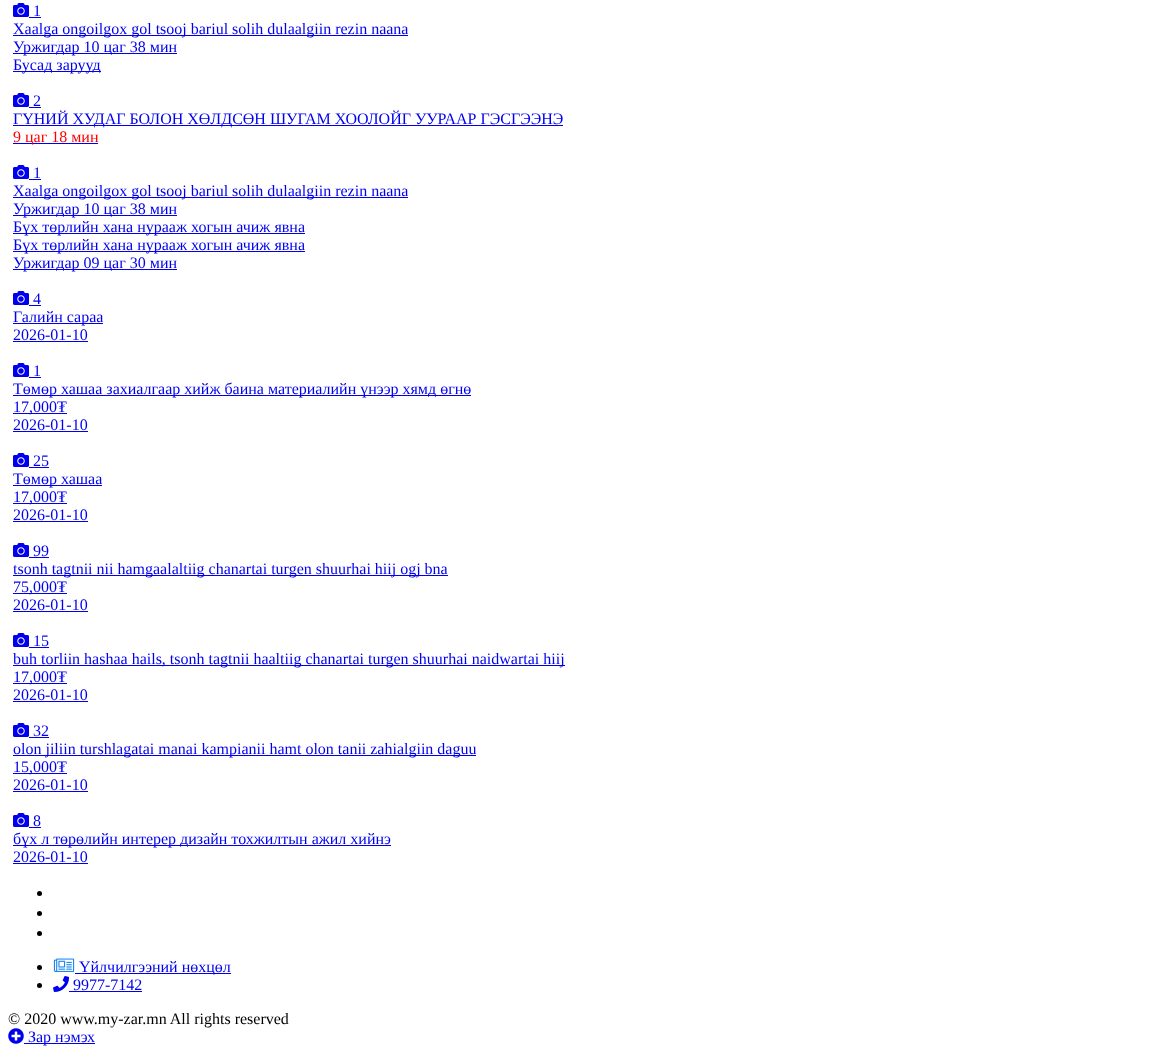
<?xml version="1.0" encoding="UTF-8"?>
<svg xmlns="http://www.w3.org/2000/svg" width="1172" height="1054">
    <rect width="100%" height="100%" fill="#FFFFFF"/>
    <image x="13" y="3" width="16" height="14" href="img_01.png"/>
    <text x="33" y="16" font-family="Liberation Serif" font-size="16" fill="#0000EE">1</text>
    <rect x="29" y="17" width="12" height="1" fill="#0000EE"/>
    <rect x="13" y="35" width="395" height="1" fill="#0000EE"/>
    <text x="13" y="34" font-family="Liberation Serif" font-size="16" fill="#0000EE">Xaalga ongoilgox gol tsooj bariul solih dulaalgiin rezin naana</text>
    <rect x="13" y="53" width="164" height="1" fill="#0000EE"/>
    <text x="13" y="52" font-family="Liberation Serif" font-size="16" fill="#0000EE">Уржигдар 10 цаг 38 мин</text>
    <rect x="13" y="71" width="88" height="1" fill="#0000EE"/>
    <text x="13" y="70" font-family="Liberation Serif" font-size="16" fill="#0000EE">Бусад зарууд</text>
    <image x="13" y="93" width="16" height="14" href="img_01.png"/>
    <text x="33" y="106" font-family="Liberation Serif" font-size="16" fill="#0000EE">2</text>
    <rect x="29" y="107" width="12" height="1" fill="#0000EE"/>
    <rect x="13" y="125" width="550" height="1" fill="#0000EE"/>
    <text x="13" y="124" font-family="Liberation Serif" font-size="16" fill="#0000EE">ГҮНИЙ ХУДАГ БОЛОН ХӨЛДСӨН ШУГАМ ХООЛОЙГ УУРААР ГЭСГЭЭНЭ</text>
    <rect x="13" y="143" width="85" height="1" fill="#0000EE"/>
    <text x="13" y="142" font-family="Liberation Serif" font-size="16" fill="#FF0000">9 цаг 18 мин</text>
    <image x="13" y="165" width="16" height="14" href="img_01.png"/>
    <text x="33" y="178" font-family="Liberation Serif" font-size="16" fill="#0000EE">1</text>
    <rect x="29" y="179" width="12" height="1" fill="#0000EE"/>
    <rect x="13" y="197" width="395" height="1" fill="#0000EE"/>
    <text x="13" y="196" font-family="Liberation Serif" font-size="16" fill="#0000EE">Xaalga ongoilgox gol tsooj bariul solih dulaalgiin rezin naana</text>
    <rect x="13" y="215" width="164" height="1" fill="#0000EE"/>
    <text x="13" y="214" font-family="Liberation Serif" font-size="16" fill="#0000EE">Уржигдар 10 цаг 38 мин</text>
    <rect x="13" y="233" width="292" height="1" fill="#0000EE"/>
    <text x="13" y="232" font-family="Liberation Serif" font-size="16" fill="#0000EE">Бүх төрлийн хана нурааж хогын ачиж явна</text>
    <rect x="13" y="251" width="292" height="1" fill="#0000EE"/>
    <text x="13" y="250" font-family="Liberation Serif" font-size="16" fill="#0000EE">Бүх төрлийн хана нурааж хогын ачиж явна</text>
    <rect x="13" y="269" width="164" height="1" fill="#0000EE"/>
    <text x="13" y="268" font-family="Liberation Serif" font-size="16" fill="#0000EE">Уржигдар 09 цаг 30 мин</text>
    <image x="13" y="291" width="16" height="14" href="img_01.png"/>
    <text x="33" y="304" font-family="Liberation Serif" font-size="16" fill="#0000EE">4</text>
    <rect x="29" y="305" width="12" height="1" fill="#0000EE"/>
    <rect x="13" y="323" width="90" height="1" fill="#0000EE"/>
    <text font-family="Liberation Serif" font-size="16" fill="#0000EE">
        <tspan x="13" y="322">Галийн сараа</tspan>
        <tspan x="13" y="340">2026-01-10</tspan>
    </text>
    <rect x="13" y="341" width="75" height="1" fill="#0000EE"/>
    <image x="13" y="363" width="16" height="14" href="img_01.png"/>
    <text x="33" y="376" font-family="Liberation Serif" font-size="16" fill="#0000EE">1</text>
    <rect x="29" y="377" width="12" height="1" fill="#0000EE"/>
    <rect x="13" y="395" width="458" height="1" fill="#0000EE"/>
    <text x="13" y="394" font-family="Liberation Serif" font-size="16" fill="#0000EE">Төмөр хашаа захиалгаар хийж баина материалийн үнээр хямд өгнө</text>
    <rect x="13" y="413" width="54" height="1" fill="#0000EE"/>
    <text font-family="Liberation Serif" font-size="16" fill="#0000EE">
        <tspan x="13" y="412">17,000₮</tspan>
        <tspan x="13" y="430">2026-01-10</tspan>
    </text>
    <rect x="13" y="431" width="75" height="1" fill="#0000EE"/>
    <image x="13" y="453" width="16" height="14" href="img_01.png"/>
    <text x="33" y="466" font-family="Liberation Serif" font-size="16" fill="#0000EE">25</text>
    <rect x="29" y="467" width="20" height="1" fill="#0000EE"/>
    <rect x="13" y="485" width="89" height="1" fill="#0000EE"/>
    <text x="13" y="484" font-family="Liberation Serif" font-size="16" fill="#0000EE">Төмөр хашаа</text>
    <rect x="13" y="503" width="54" height="1" fill="#0000EE"/>
    <text font-family="Liberation Serif" font-size="16" fill="#0000EE">
        <tspan x="13" y="502">17,000₮</tspan>
        <tspan x="13" y="520">2026-01-10</tspan>
    </text>
    <rect x="13" y="521" width="75" height="1" fill="#0000EE"/>
    <image x="13" y="543" width="16" height="14" href="img_01.png"/>
    <text x="33" y="556" font-family="Liberation Serif" font-size="16" fill="#0000EE">99</text>
    <rect x="29" y="557" width="20" height="1" fill="#0000EE"/>
    <rect x="13" y="575" width="435" height="1" fill="#0000EE"/>
    <text x="13" y="574" font-family="Liberation Serif" font-size="16" fill="#0000EE">tsonh tagtnii nii hamgaalaltiig chanartai turgen shuurhai hiij ogj bna</text>
    <rect x="13" y="593" width="54" height="1" fill="#0000EE"/>
    <text font-family="Liberation Serif" font-size="16" fill="#0000EE">
        <tspan x="13" y="592">75,000₮</tspan>
        <tspan x="13" y="610">2026-01-10</tspan>
    </text>
    <rect x="13" y="611" width="75" height="1" fill="#0000EE"/>
    <image x="13" y="633" width="16" height="14" href="img_01.png"/>
    <text x="33" y="646" font-family="Liberation Serif" font-size="16" fill="#0000EE">15</text>
    <rect x="29" y="647" width="20" height="1" fill="#0000EE"/>
    <rect x="13" y="665" width="552" height="1" fill="#0000EE"/>
    <text x="13" y="664" font-family="Liberation Serif" font-size="16" fill="#0000EE">buh torliin hashaa hails, tsonh tagtnii haaltiig chanartai turgen shuurhai naidwartai hiij</text>
    <rect x="13" y="683" width="54" height="1" fill="#0000EE"/>
    <text font-family="Liberation Serif" font-size="16" fill="#0000EE">
        <tspan x="13" y="682">17,000₮</tspan>
        <tspan x="13" y="700">2026-01-10</tspan>
    </text>
    <rect x="13" y="701" width="75" height="1" fill="#0000EE"/>
    <image x="13" y="723" width="16" height="14" href="img_01.png"/>
    <text x="33" y="736" font-family="Liberation Serif" font-size="16" fill="#0000EE">32</text>
    <rect x="29" y="737" width="20" height="1" fill="#0000EE"/>
    <rect x="13" y="755" width="463" height="1" fill="#0000EE"/>
    <text x="13" y="754" font-family="Liberation Serif" font-size="16" fill="#0000EE">olon jiliin turshlagatai manai kampianii hamt olon tanii zahialgiin daguu</text>
    <rect x="13" y="773" width="54" height="1" fill="#0000EE"/>
    <text font-family="Liberation Serif" font-size="16" fill="#0000EE">
        <tspan x="13" y="772">15,000₮</tspan>
        <tspan x="13" y="790">2026-01-10</tspan>
    </text>
    <rect x="13" y="791" width="75" height="1" fill="#0000EE"/>
    <image x="13" y="813" width="16" height="14" href="img_01.png"/>
    <text x="33" y="826" font-family="Liberation Serif" font-size="16" fill="#0000EE">8</text>
    <rect x="29" y="827" width="12" height="1" fill="#0000EE"/>
    <rect x="13" y="845" width="378" height="1" fill="#0000EE"/>
    <text font-family="Liberation Serif" font-size="16" fill="#0000EE">
        <tspan x="13" y="844">бүх л төрөлийн интерер дизайн тохжилтын ажил хийнэ</tspan>
        <tspan x="13" y="862">2026-01-10</tspan>
    </text>
    <rect x="13" y="863" width="75" height="1" fill="#0000EE"/>
    <circle cx="39.5" cy="893.5" r="2.5" fill="#000000"/>
    <circle cx="39.5" cy="913.5" r="2.5" fill="#000000"/>
    <circle cx="39.5" cy="933.5" r="2.5" fill="#000000"/>
    <circle cx="39.5" cy="967.5" r="2.5" fill="#000000"/>
    <image x="53" y="958" width="22" height="14" href="img_02.png"/>
    <rect x="75" y="973" width="156" height="1" fill="#0000EE"/>
    <text x="79" y="972" font-family="Liberation Serif" font-size="16" fill="#0000EE">Үйлчилгээний нөхцөл</text>
    <circle cx="39.5" cy="985.5" r="2.5" fill="#000000"/>
    <image x="53" y="976" width="16" height="16" href="img_03.png"/>
    <text x="73" y="990" font-family="Liberation Serif" font-size="16" fill="#0000EE">9977-7142</text>
    <rect x="69" y="991" width="73" height="1" fill="#0000EE"/>
    <text x="8" y="1024" font-family="Liberation Serif" font-size="16" fill="#000000">© 2020 www.my-zar.mn All rights reserved</text>
    <image x="8" y="1028" width="16" height="16" href="img_04.png"/>
    <rect x="24" y="1043" width="71" height="1" fill="#0000EE"/>
    <text x="28" y="1042" font-family="Liberation Serif" font-size="16" fill="#0000EE">Зар нэмэх</text>
</svg>
